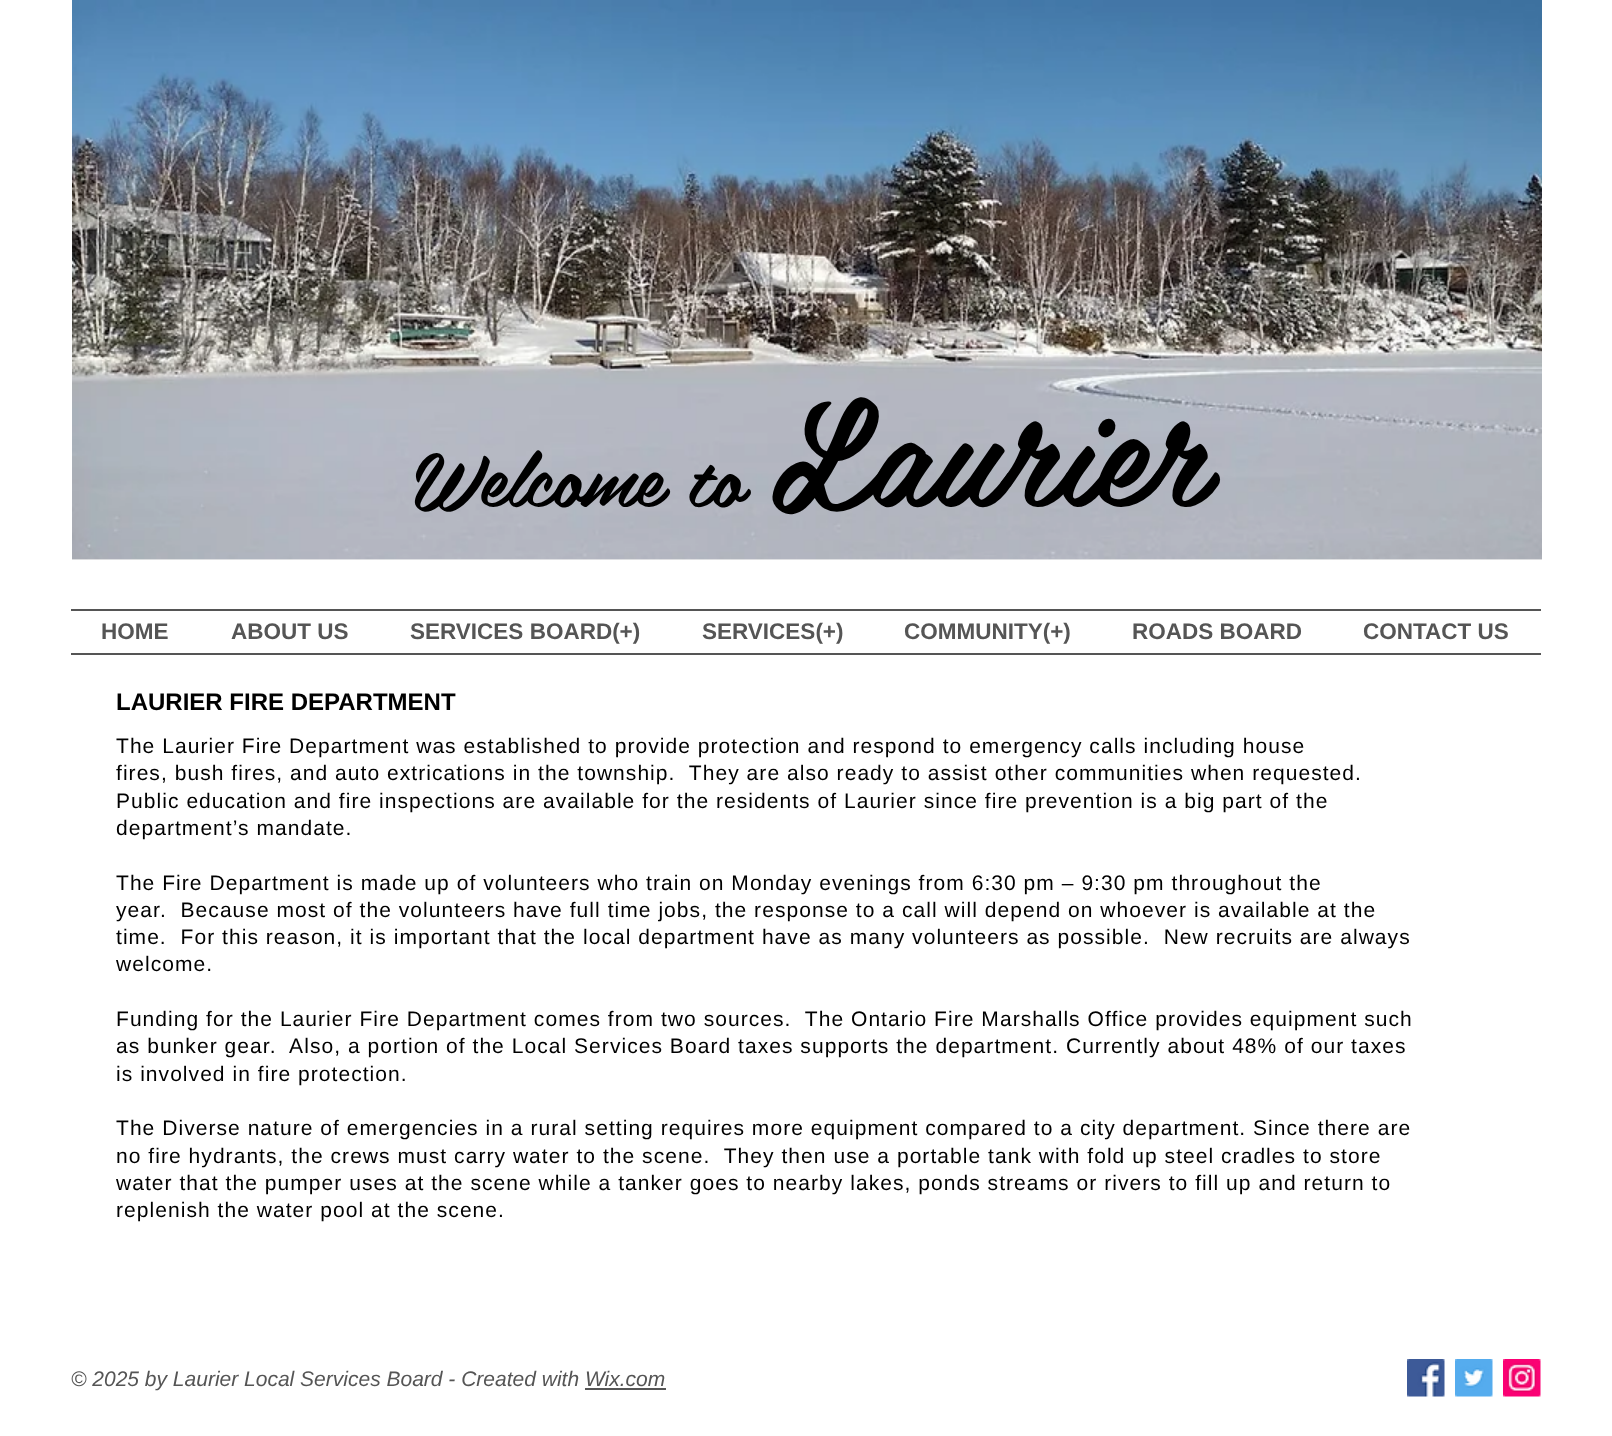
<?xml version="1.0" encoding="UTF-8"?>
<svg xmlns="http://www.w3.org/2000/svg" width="1612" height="1436">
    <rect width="100%" height="100%" fill="#FFFFFF"/>
    <rect x="72" y="559" width="1470" height="1" fill="#EDEDED"/>
    <image x="72" y="0" width="1470" height="560" href="img_01.png"/>
    <text x="413" y="507" font-family="'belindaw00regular'" font-size="76.5" fill="#000000">Welcome to</text>
    <text x="769" y="507" font-family="'belindaw00regular'" font-size="150" fill="#000000">Laurier</text>
    <rect x="71" y="609" width="1470" height="2" fill="#555555"/>
    <rect x="71" y="653" width="1470" height="2" fill="#555555"/>
    <text x="101" y="639" font-family="Liberation Sans" font-size="22.5" font-weight="700" fill="#555555">HOME</text>
    <text x="231" y="639" font-family="Liberation Sans" font-size="22.5" font-weight="700" fill="#555555">ABOUT US</text>
    <text x="410" y="639" font-family="Liberation Sans" font-size="22.5" font-weight="700" fill="#555555">SERVICES BOARD(+)</text>
    <text x="702" y="639" font-family="Liberation Sans" font-size="22.5" font-weight="700" fill="#555555">SERVICES(+)</text>
    <text x="904" y="639" font-family="Liberation Sans" font-size="22.5" font-weight="700" fill="#555555">COMMUNITY(+)</text>
    <text x="1132" y="639" font-family="Liberation Sans" font-size="22.5" font-weight="700" fill="#555555">ROADS BOARD</text>
    <text x="1363" y="639" font-family="Liberation Sans" font-size="22.5" font-weight="700" fill="#555555">CONTACT US</text>
    <text x="116" y="710" font-family="Liberation Sans" font-size="24" font-weight="700" fill="#000000">LAURIER FIRE DEPARTMENT</text>
    <text font-family="Liberation Sans" font-size="21" letter-spacing="1.05" fill="#000000" xml:space="preserve"><tspan x="116" y="753">The Laurier Fire Department was established to provide protection and respond to emergency calls including house</tspan><tspan x="116" y="780">fires, bush fires, and auto extrications in the township.  They are also ready to assist other communities when requested.</tspan><tspan x="116" y="808">Public education and fire inspections are available for the residents of Laurier since fire prevention is a big part of the</tspan><tspan x="116" y="835">department’s mandate.</tspan></text>
    <text font-family="Liberation Sans" font-size="21" letter-spacing="1.05" fill="#000000" xml:space="preserve"><tspan x="116" y="890">The Fire Department is made up of volunteers who train on Monday evenings from 6:30 pm – 9:30 pm throughout the</tspan><tspan x="116" y="917">year.  Because most of the volunteers have full time jobs, the response to a call will depend on whoever is available at the</tspan><tspan x="116" y="944">time.  For this reason, it is important that the local department have as many volunteers as possible.  New recruits are always</tspan><tspan x="116" y="971">welcome.</tspan></text>
    <text font-family="Liberation Sans" font-size="21" letter-spacing="1.05" fill="#000000" xml:space="preserve"><tspan x="116" y="1026">Funding for the Laurier Fire Department comes from two sources.  The Ontario Fire Marshalls Office provides equipment such</tspan><tspan x="116" y="1053">as bunker gear.  Also, a portion of the Local Services Board taxes supports the department. Currently about 48% of our taxes</tspan><tspan x="116" y="1081">is involved in fire protection.</tspan></text>
    <text font-family="Liberation Sans" font-size="21" letter-spacing="1.05" fill="#000000" xml:space="preserve"><tspan x="116" y="1135">The Diverse nature of emergencies in a rural setting requires more equipment compared to a city department. Since there are</tspan><tspan x="116" y="1163">no fire hydrants, the crews must carry water to the scene.  They then use a portable tank with fold up steel cradles to store</tspan><tspan x="116" y="1190">water that the pumper uses at the scene while a tanker goes to nearby lakes, ponds streams or rivers to fill up and return to</tspan><tspan x="116" y="1217">replenish the water pool at the scene.</tspan></text>
    <text x="71" y="1386" font-family="Liberation Sans" font-size="21" font-style="italic" fill="#555555">© 2025 by Laurier Local Services Board - Created with Wix.com</text>
    <rect x="585" y="1388" width="81" height="2" fill="#555555"/>
    <image x="1407" y="1359" width="38" height="38" href="img_02.png"/>
    <image x="1455" y="1359" width="38" height="38" href="img_03.png"/>
    <image x="1503" y="1359" width="38" height="38" href="img_04.png"/>
</svg>
